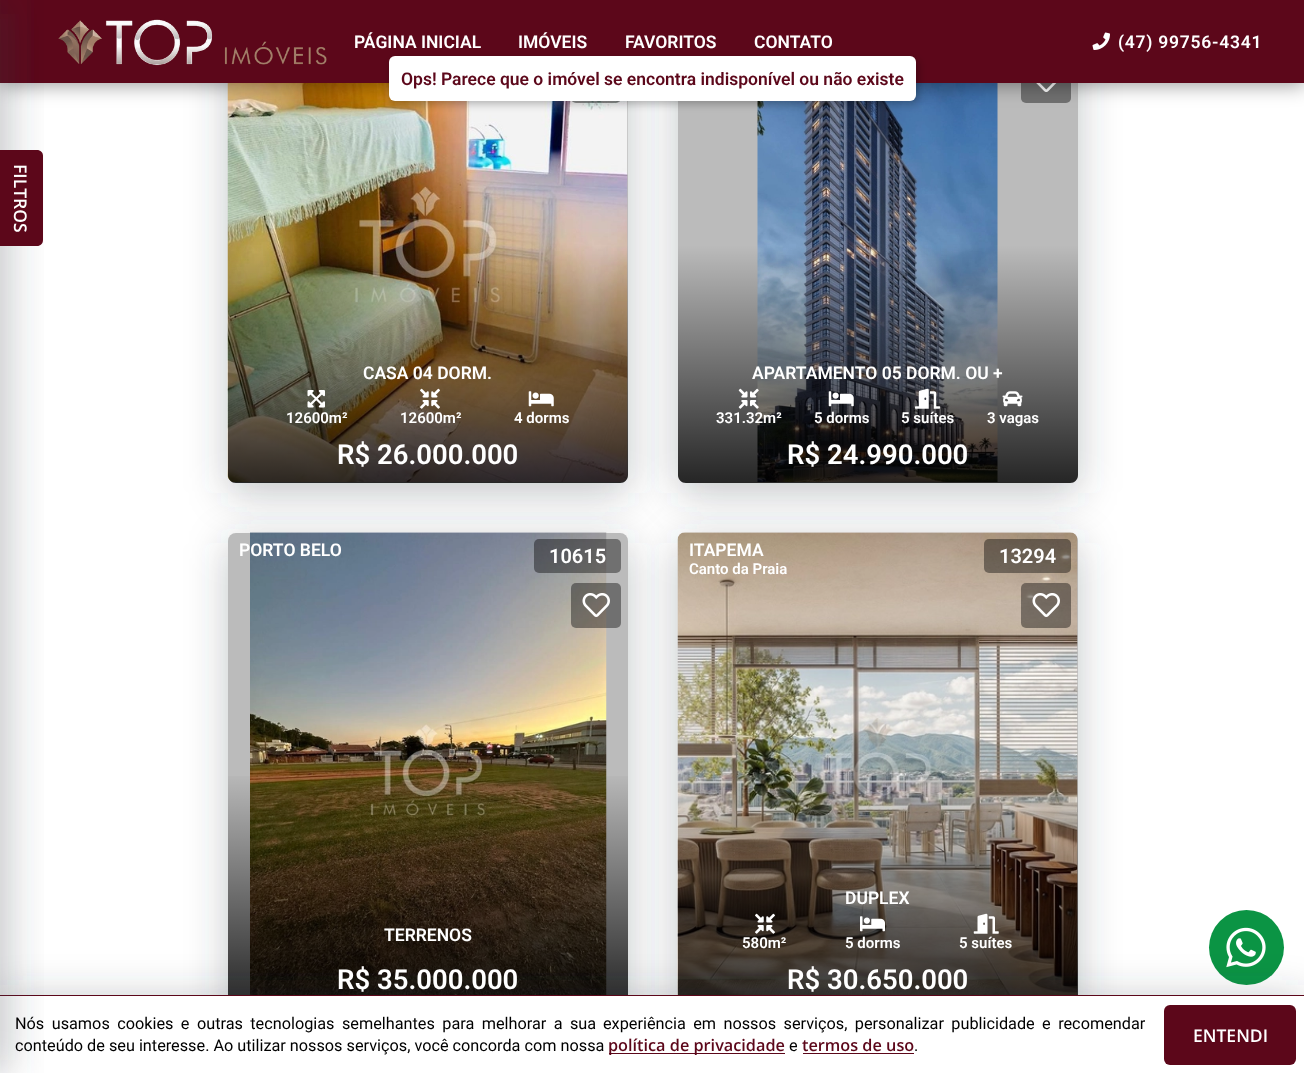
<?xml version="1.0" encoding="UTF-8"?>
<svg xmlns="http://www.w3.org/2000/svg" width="1304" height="1073">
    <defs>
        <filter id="blur1" x="-50%" y="-200%" width="200%" height="500%"><feGaussianBlur stdDeviation="21"/></filter>
        <linearGradient id="g1" gradientUnits="userSpaceOnUse" x1="428" y1="245" x2="428" y2="483"><stop offset="0" stop-color="#000000" stop-opacity="0"/><stop offset="1" stop-color="#000000" stop-opacity="0.8"/></linearGradient>
        <filter id="blur2" x="-50%" y="-200%" width="200%" height="500%"><feGaussianBlur stdDeviation="10"/></filter>
        <linearGradient id="g2" gradientUnits="userSpaceOnUse" x1="878" y1="245" x2="878" y2="483"><stop offset="0" stop-color="#000000" stop-opacity="0"/><stop offset="1" stop-color="#000000" stop-opacity="0.8"/></linearGradient>
        <linearGradient id="g3" gradientUnits="userSpaceOnUse" x1="428" y1="770" x2="428" y2="1008"><stop offset="0" stop-color="#000000" stop-opacity="0"/><stop offset="1" stop-color="#000000" stop-opacity="0.8"/></linearGradient>
        <linearGradient id="g4" gradientUnits="userSpaceOnUse" x1="878" y1="770" x2="878" y2="1008"><stop offset="0" stop-color="#000000" stop-opacity="0"/><stop offset="1" stop-color="#000000" stop-opacity="0.8"/></linearGradient>
        <filter id="blur3" x="-50%" y="-200%" width="200%" height="500%"><feGaussianBlur stdDeviation="4"/></filter>
    </defs>
    <rect width="100%" height="100%" fill="#FFFFFF"/>
    <rect x="228" y="18" width="400" height="475" rx="8" fill="#3B4047" fill-opacity="0.3" filter="url(#blur1)"/>
    <rect x="228" y="8" width="400" height="475" rx="8" fill="#BBBBBB"/>
    <image x="227" y="83" width="401" height="399" href="img_03.png"/>
    <rect x="571" y="58" width="50" height="45" rx="5" fill="#000000" fill-opacity="0.4"/>
    <path d="M 228 245 H 628 V 475 C 628 479.5 624.5 483 620 483 H 236 C 231.5 483 228 479.5 228 475 Z" fill="url(#g1)"/>
    <rect x="678" y="18" width="400" height="475" rx="8" fill="#3B4047" fill-opacity="0.3" filter="url(#blur1)"/>
    <rect x="678" y="8" width="400" height="475" rx="8" fill="#BBBBBB"/>
    <rect x="1021" y="58" width="50" height="45" rx="5" fill="#707070"/>
    <image x="1036" y="83" width="21" height="9" href="img_07.png"/>
    <image x="757" y="83" width="241" height="399" href="img_08.png"/>
    <rect x="0" y="3" width="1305" height="82" fill="#000000" fill-opacity="0.4" filter="url(#blur2)"/>
    <rect x="0" y="0" width="1304" height="83" fill="#5C071A"/>
    <image x="58" y="19" width="269" height="47" href="img_01.png"/>
    <text x="354" y="48" font-family="Roboto" font-size="17.5" font-weight="600" fill="#FFFFFF">PÁGINA INICIAL</text>
    <text x="518" y="48" font-family="Roboto" font-size="17.5" font-weight="600" fill="#FFFFFF">IMÓVEIS</text>
    <text x="625" y="48" font-family="Roboto" font-size="17.5" font-weight="600" fill="#FFFFFF">FAVORITOS</text>
    <text x="754" y="48" font-family="Roboto" font-size="17.5" font-weight="600" fill="#FFFFFF">CONTATO</text>
    <image x="1092" y="32" width="18" height="18" href="img_02.png"/>
    <text x="1118" y="48" font-family="Roboto" font-size="17.5" font-weight="600" letter-spacing="0.75" fill="#FFFFFF">(47) 99756-4341</text>
    <path d="M 678 245 H 1078 V 475 C 1078 479.5 1074.5 483 1070 483 H 686 C 681.5 483 678 479.5 678 475 Z" fill="url(#g2)"/>
    <rect x="228" y="543" width="400" height="475" rx="8" fill="#3B4047" fill-opacity="0.3" filter="url(#blur1)"/>
    <rect x="228" y="533" width="400" height="475" rx="8" fill="#BBBBBB"/>
    <image x="250" y="532" width="357" height="463" href="img_13.png"/>
    <rect x="534" y="539" width="87" height="34" rx="5" fill="#000000" fill-opacity="0.4"/>
    <rect x="228" y="776" width="400" height="219" fill="url(#g3)"/>
    <rect x="571" y="583" width="50" height="45" rx="5" fill="#000000" fill-opacity="0.4"/>
    <rect x="678" y="543" width="400" height="475" rx="8" fill="#3B4047" fill-opacity="0.3" filter="url(#blur1)"/>
    <rect x="678" y="533" width="400" height="475" rx="8" fill="#BBBBBB"/>
    <image x="677" y="532" width="401" height="463" href="img_15.png"/>
    <rect x="678" y="776" width="400" height="219" fill="url(#g4)"/>
    <circle cx="1246.5" cy="947.5" r="37.5" fill="#0B9444"/>
    <image x="1226" y="927" width="40" height="41" href="img_20.png"/>
    <rect x="0" y="999" width="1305" height="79" fill="#3B4047" fill-opacity="0.3" filter="url(#blur1)"/>
    <rect x="0" y="996" width="1304" height="77" fill="#FFFFFF"/>
    <rect x="0" y="995" width="1304" height="1" fill="#5C071A"/>
    <rect x="-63" y="0" width="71" height="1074" fill="#3B4047" fill-opacity="0.3" filter="url(#blur1)"/>
    <path d="M 0 150 H 37 C 40.5 150 43 152.5 43 156 V 240 C 43 243.5 40.5 246 37 246 H 0 Z" fill="#5C071A"/>
    <text x="14" y="164" transform="rotate(90 14 164)" font-family="Open Sans" font-size="17.5" font-weight="600" fill="#FFFFFF">FILTROS</text>
    <text x="363" y="379" font-family="Roboto" font-size="17.5" font-weight="600" fill="#FFFFFF">CASA 04 DORM.</text>
    <image x="307" y="390" width="18" height="18" href="img_04.png"/>
    <text x="286" y="423" font-family="Roboto" font-size="15" font-weight="600" fill="#FFFFFF">12600m²</text>
    <image x="420" y="388" width="20" height="21" href="img_05.png"/>
    <text x="400" y="423" font-family="Roboto" font-size="15" font-weight="600" fill="#FFFFFF">12600m²</text>
    <image x="528" y="391" width="26" height="16" href="img_06.png"/>
    <text x="514" y="423" font-family="Roboto" font-size="15" font-weight="600" fill="#FFFFFF">4 dorms</text>
    <text x="337" y="464" font-family="Roboto" font-size="27.5" font-weight="600" fill="#FFFFFF">R$ 26.000.000</text>
    <text x="752" y="379" font-family="Roboto" font-size="17.5" font-weight="600" fill="#FFFFFF">APARTAMENTO 05 DORM. OU +</text>
    <image x="738" y="388" width="21" height="21" href="img_09.png"/>
    <text x="716" y="423" font-family="Roboto" font-size="15" font-weight="600" fill="#FFFFFF">331.32m²</text>
    <image x="828" y="391" width="26" height="16" href="img_10.png"/>
    <text x="814" y="423" font-family="Roboto" font-size="15" font-weight="600" fill="#FFFFFF">5 dorms</text>
    <image x="915" y="388" width="25" height="21" href="img_11.png"/>
    <text x="901" y="423" font-family="Roboto" font-size="15" font-weight="600" fill="#FFFFFF">5 suítes</text>
    <image x="1002" y="391" width="21" height="16" href="img_12.png"/>
    <text x="987" y="423" font-family="Roboto" font-size="15" font-weight="600" fill="#FFFFFF">3 vagas</text>
    <text x="787" y="464" font-family="Roboto" font-size="27.5" font-weight="600" fill="#FFFFFF">R$ 24.990.000</text>
    <text x="239" y="556" font-family="Roboto" font-size="17.5" font-weight="600" fill="#FFFFFF">PORTO BELO</text>
    <text x="549" y="563" font-family="Roboto" font-size="20" font-weight="600" fill="#FFFFFF">10615</text>
    <text x="384" y="941" font-family="Roboto" font-size="17.5" font-weight="600" fill="#FFFFFF">TERRENOS</text>
    <text x="337" y="989" font-family="Roboto" font-size="27.5" font-weight="600" fill="#FFFFFF">R$ 35.000.000</text>
    <image x="582" y="593" width="28" height="24" href="img_14.png"/>
    <text x="689" y="556" font-family="Roboto" font-size="17.5" font-weight="600" fill="#FFFFFF">ITAPEMA</text>
    <text x="689" y="574" font-family="Roboto" font-size="15" font-weight="600" fill="#FFFFFF">Canto da Praia</text>
    <rect x="984" y="539" width="87" height="34" rx="5" fill="#000000" fill-opacity="0.4"/>
    <text x="999" y="563" font-family="Roboto" font-size="20" font-weight="600" fill="#FFFFFF">13294</text>
    <text x="845" y="904" font-family="Roboto" font-size="17.5" font-weight="600" fill="#FFFFFF">DUPLEX</text>
    <image x="755" y="913" width="20" height="21" href="img_16.png"/>
    <text x="742" y="948" font-family="Roboto" font-size="15" font-weight="600" fill="#FFFFFF">580m²</text>
    <image x="860" y="916" width="25" height="16" href="img_17.png"/>
    <text x="845" y="948" font-family="Roboto" font-size="15" font-weight="600" fill="#FFFFFF">5 dorms</text>
    <image x="973" y="913" width="26" height="21" href="img_18.png"/>
    <text x="959" y="948" font-family="Roboto" font-size="15" font-weight="600" fill="#FFFFFF">5 suítes</text>
    <text x="787" y="989" font-family="Roboto" font-size="27.5" font-weight="600" fill="#FFFFFF">R$ 30.650.000</text>
    <rect x="1021" y="583" width="50" height="45" rx="5" fill="#000000" fill-opacity="0.4"/>
    <image x="1032" y="593" width="28" height="24" href="img_19.png"/>
    <rect x="391" y="59" width="528" height="45" rx="6" fill="#000000" fill-opacity="0.25" filter="url(#blur3)"/>
    <rect x="389" y="56" width="527" height="45" rx="6" fill="#FFFFFF"/>
    <text x="401" y="85" font-family="Roboto" font-size="17.5" font-weight="600" fill="#5C071A">Ops! Parece que o imóvel se encontra indisponível ou não existe</text>
    <text x="15" y="1029" word-spacing="3.4" font-family="Roboto" font-size="16.25" fill="#000000">Nós usamos cookies e outras tecnologias semelhantes para melhorar a sua</text>
    <text x="603" y="1029" word-spacing="3.4" font-family="Roboto" font-size="16.25" fill="#000000">experiência em nossos serviços, personalizar publicidade e recomendar</text>
    <text x="15" y="1051" font-family="Roboto" font-size="16.25" fill="#000000">conteúdo de seu interesse. Ao utilizar nossos serviços, você concorda com nossa</text>
    <rect x="609" y="1053" width="176" height="1" fill="#5C071A"/>
    <text x="608" y="1051" font-family="Open Sans" font-size="16.25" font-weight="600" fill="#5C071A">política de privacidade</text>
    <text x="789" y="1051" font-family="Roboto" font-size="16.25" fill="#000000">e</text>
    <text x="802" y="1051" font-family="Open Sans" font-size="16.25" font-weight="600" fill="#5C071A">termos de uso</text>
    <rect x="803" y="1053" width="111" height="1" fill="#5C071A"/>
    <text x="914" y="1051" font-family="Roboto" font-size="16.25" fill="#000000">.</text>
    <rect x="1164" y="1005" width="132" height="60" rx="6" fill="#5C071A"/>
    <text x="1193" y="1042" font-family="Open Sans" font-size="17.5" font-weight="600" fill="#FFFFFF">ENTENDI</text>
</svg>
